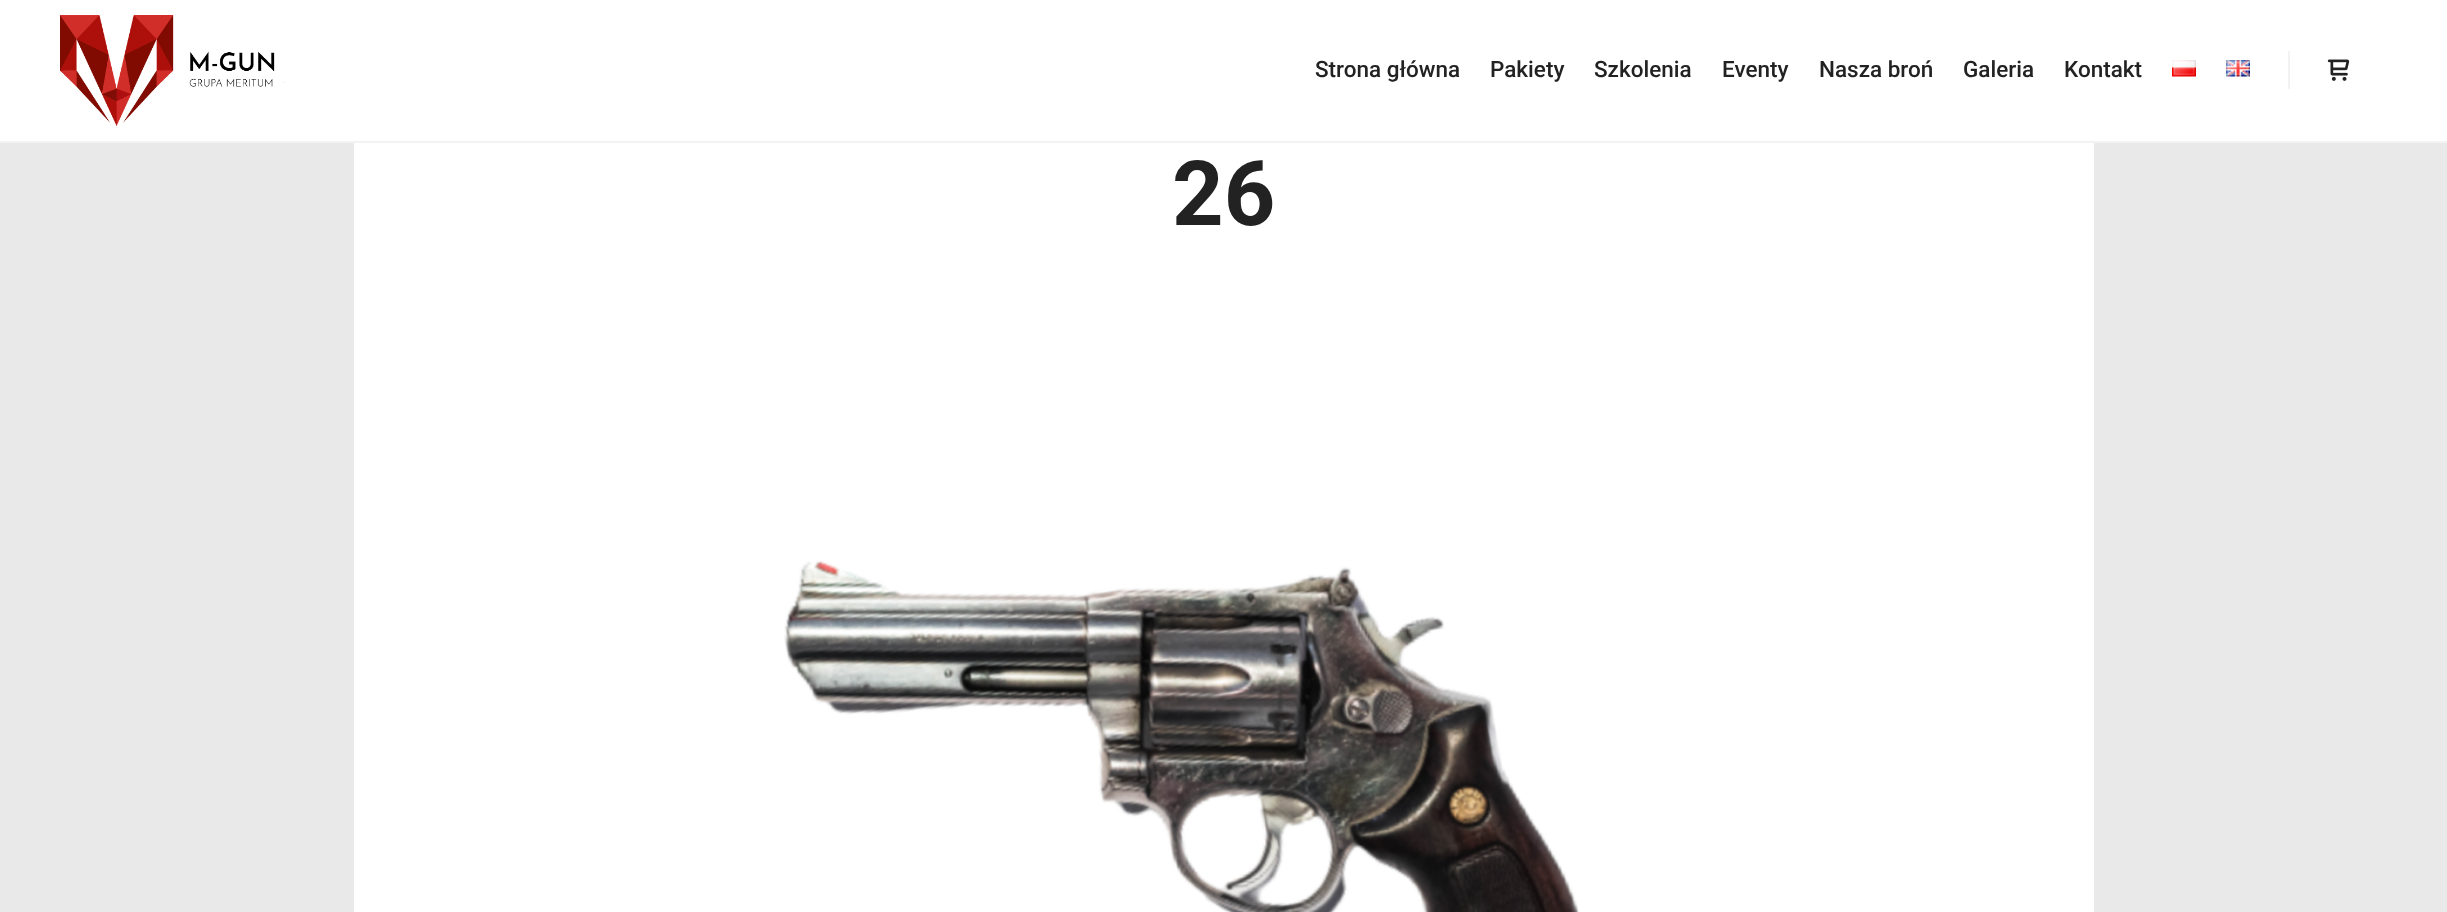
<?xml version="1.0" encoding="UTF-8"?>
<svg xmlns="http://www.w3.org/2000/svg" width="2447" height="912">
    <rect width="100%" height="100%" fill="#E9E9E9"/>
    <rect x="0" y="0" width="2447" height="141" fill="#FFFFFF"/>
    <rect x="0" y="141" width="2447" height="2" fill="#F3F3F3"/>
    <image x="60" y="15" width="225" height="111" href="img_01.png"/>
    <text x="1315" y="77" font-family="Roboto" font-size="22.5" font-weight="500" fill="#222222">Strona główna</text>
    <text x="1490" y="77" font-family="Roboto" font-size="22.5" font-weight="500" fill="#222222">Pakiety</text>
    <text x="1594" y="77" font-family="Roboto" font-size="22.5" font-weight="500" fill="#222222">Szkolenia</text>
    <text x="1722" y="77" font-family="Roboto" font-size="22.5" font-weight="500" fill="#222222">Eventy</text>
    <text x="1819" y="77" font-family="Roboto" font-size="22.5" font-weight="500" fill="#222222">Nasza broń</text>
    <text x="1963" y="77" font-family="Roboto" font-size="22.5" font-weight="500" fill="#222222">Galeria</text>
    <text x="2064" y="77" font-family="Roboto" font-size="22.5" font-weight="500" fill="#222222">Kontakt</text>
    <image x="2172" y="60" width="24" height="17" href="img_02.png"/>
    <image x="2226" y="60" width="24" height="17" href="img_03.png"/>
    <rect x="2288" y="51" width="2" height="38" fill="#F3F3F3"/>
    <image x="2327" y="59" width="23" height="22" href="img_04.png"/>
    <rect x="354" y="143" width="1740" height="769" fill="#FFFFFF"/>
    <text x="1172" y="225" font-family="Roboto" font-size="90" font-weight="700" fill="#222222">26</text>
    <image x="784" y="560" width="795" height="352" href="img_05.png"/>
</svg>
